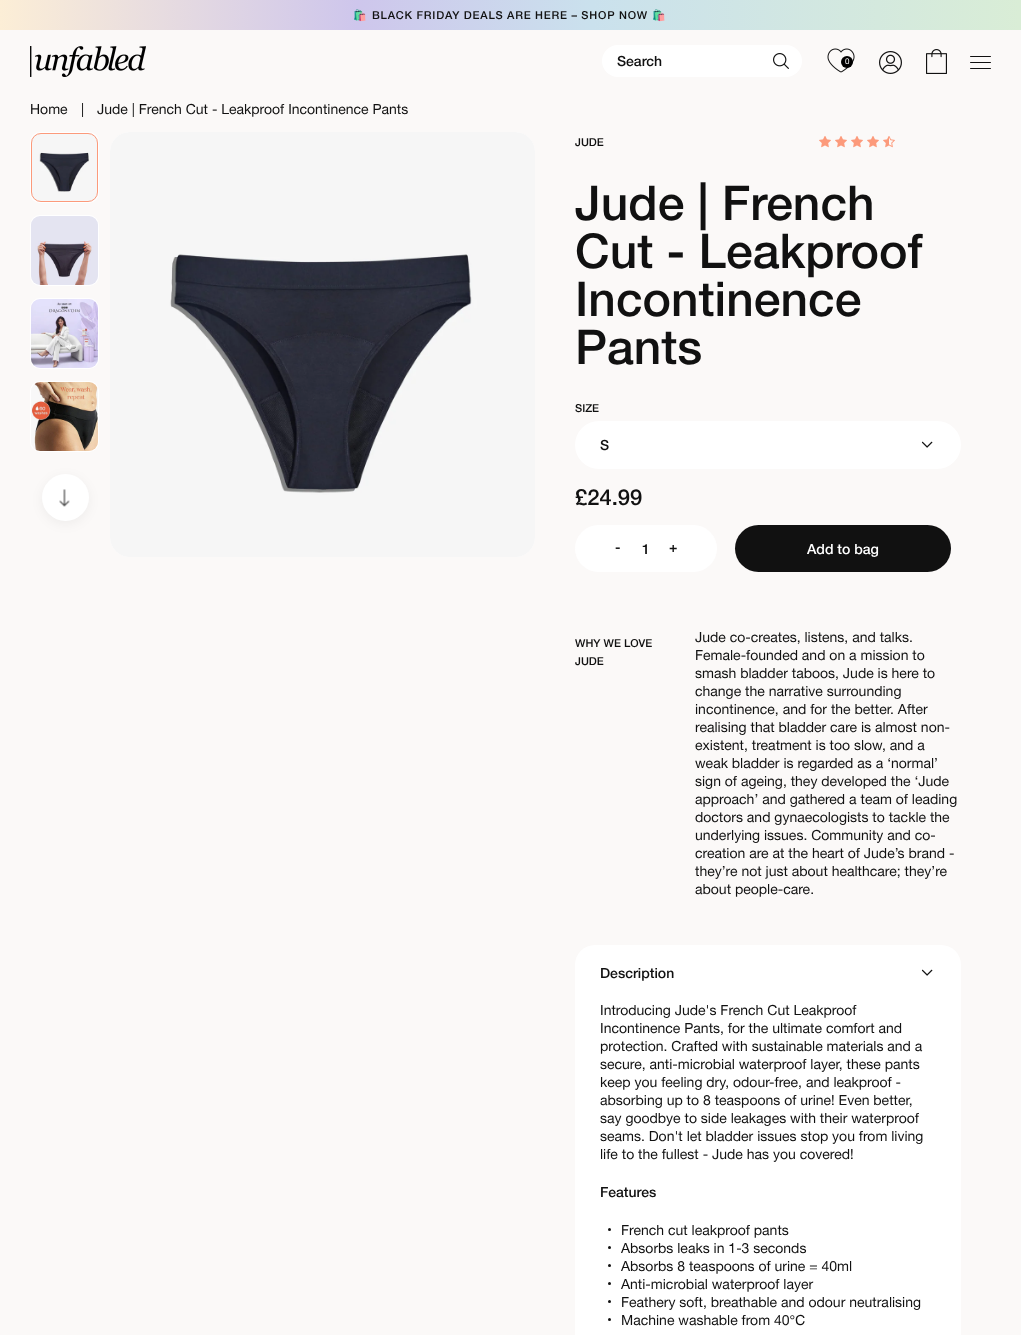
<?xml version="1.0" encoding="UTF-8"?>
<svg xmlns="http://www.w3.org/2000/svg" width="1021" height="1335">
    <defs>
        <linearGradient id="g1" gradientUnits="userSpaceOnUse" x1="0" y1="15" x2="1021" y2="15"><stop offset="0" stop-color="#FCEED6"/><stop offset="0.35" stop-color="#CEC6EC"/><stop offset="0.58" stop-color="#CAE1ED"/><stop offset="1" stop-color="#D9EDD6"/></linearGradient>
        <filter id="blur1" x="-50%" y="-200%" width="200%" height="500%"><feGaussianBlur stdDeviation="6"/></filter>
    </defs>
    <rect width="100%" height="100%" fill="#FBF9F8"/>
    <rect x="0" y="0" width="1021" height="30" fill="url(#g1)"/>
    <text x="353" y="19" font-family="Noto Color Emoji" font-size="11" letter-spacing="0.8" fill="#111111">🛍️</text>
    <text x="372" y="19" word-spacing="-0.25" font-family="Helvetica Neue" font-size="11" font-weight="500" letter-spacing="0.8" fill="#111111">BLACK FRIDAY DEALS ARE HERE – SHOP NOW</text>
    <text x="652" y="19" font-family="Noto Color Emoji" font-size="11" letter-spacing="0.8" fill="#111111">🛍️</text>
    <image x="30" y="46" width="116" height="31" href="img_01.png"/>
    <rect x="602" y="45" width="200" height="32" rx="16" fill="#FFFFFF"/>
    <text x="617" y="66" font-family="Helvetica Neue" font-size="14" font-weight="500" fill="#111111">Search</text>
    <image x="773" y="53" width="16" height="16" href="img_02.png"/>
    <image x="827" y="48" width="28" height="25" href="img_03.png"/>
    <circle cx="847" cy="62" r="6" fill="#000000"/>
    <text x="845" y="64" font-family="Helvetica Neue" font-size="8" fill="#FFFFFF">0</text>
    <image x="879" y="51" width="23" height="23" href="img_04.png"/>
    <image x="926" y="49" width="21" height="25" href="img_05.png"/>
    <image x="970" y="56" width="21" height="13" href="img_06.png"/>
    <text x="30" y="114" font-family="Helvetica Neue" font-size="14" fill="#111111">Home</text>
    <text x="81" y="114" font-family="Helvetica Neue" font-size="14" fill="#111111">|</text>
    <text x="97" y="114" font-family="Helvetica Neue" font-size="14" fill="#111111">Jude | French Cut - Leakproof Incontinence Pants</text>
    <rect x="30" y="132" width="69" height="71" rx="10" fill="#FFFFFF"/>
    <image x="31" y="133" width="67" height="69" href="img_07.png"/>
    <rect x="31.5" y="133.5" width="66" height="68" rx="9.5" fill="none" stroke="#FC9A7B"/>
    <rect x="30" y="215" width="69" height="71" rx="10" fill="#FFFFFF"/>
    <image x="31" y="216" width="67" height="69" href="img_08.png"/>
    <rect x="30" y="298" width="69" height="71" rx="10" fill="#FFFFFF"/>
    <image x="31" y="299" width="67" height="69" href="img_09.png"/>
    <rect x="30" y="381" width="69" height="71" rx="10" fill="#FFFFFF"/>
    <image x="31" y="382" width="67" height="69" href="img_10.png"/>
    <rect x="42" y="477" width="47" height="47" rx="23.5" fill="#000000" fill-opacity="0.05" filter="url(#blur1)"/>
    <circle cx="65.5" cy="497.5" r="23.5" fill="#FFFFFF"/>
    <image x="59" y="489" width="11" height="18" href="img_11.png"/>
    <rect x="110" y="132" width="425" height="425" rx="20" fill="#FFFFFF"/>
    <image x="110" y="132" width="425" height="425" href="img_12.png"/>
    <text x="575" y="146" font-family="Helvetica Neue" font-size="11" font-weight="500" fill="#111111">JUDE</text>
    <image x="819" y="136" width="12" height="12" href="img_13.png"/>
    <image x="835" y="136" width="12" height="12" href="img_13.png"/>
    <image x="851" y="136" width="12" height="12" href="img_13.png"/>
    <image x="867" y="136" width="12" height="12" href="img_13.png"/>
    <image x="883" y="136" width="12" height="12" href="img_14.png"/>
    <text font-family="Helvetica Neue" font-size="48" font-weight="500" fill="#111111">
        <tspan x="575" y="220">Jude | French</tspan>
        <tspan x="575" y="268">Cut - Leakproof</tspan>
        <tspan x="575" y="316">Incontinence</tspan>
        <tspan x="575" y="364">Pants</tspan>
    </text>
    <text x="575" y="412" font-family="Helvetica Neue" font-size="11" font-weight="500" fill="#111111">SIZE</text>
    <rect x="575" y="421" width="386" height="48" rx="24" fill="#FFFFFF"/>
    <text x="600" y="450" font-family="Helvetica Neue" font-size="14" font-weight="500" fill="#111111">S</text>
    <image x="921" y="441" width="12" height="7" href="img_15.png"/>
    <text x="575" y="505" font-family="Helvetica Neue" font-size="22" font-weight="500" fill="#111111">£24.99</text>
    <rect x="575" y="525" width="142" height="47" rx="23.5" fill="#FFFFFF"/>
    <text x="615" y="552" font-family="Helvetica Neue" font-size="14" font-weight="500" fill="#111111">-</text>
    <text x="642" y="554" font-family="Helvetica Neue" font-size="14" font-weight="500" fill="#111111">1</text>
    <text x="669" y="552" font-family="Helvetica Neue" font-size="14" font-weight="500" fill="#111111">+</text>
    <rect x="735" y="525" width="216" height="47" rx="23.5" fill="#111111"/>
    <text x="807" y="554" font-family="Helvetica Neue" font-size="14" font-weight="500" fill="#FFFFFF">Add to bag</text>
    <text font-family="Helvetica Neue" font-size="11" font-weight="500" fill="#111111">
        <tspan x="575" y="647">WHY WE LOVE</tspan>
        <tspan x="575" y="665">JUDE</tspan>
    </text>
    <text font-family="Helvetica Neue" font-size="14" fill="#111111">
        <tspan x="695" y="642">Jude co-creates, listens, and talks.</tspan>
        <tspan x="695" y="660">Female-founded and on a mission to</tspan>
        <tspan x="695" y="678">smash bladder taboos, Jude is here to</tspan>
        <tspan x="695" y="696">change the narrative surrounding</tspan>
        <tspan x="695" y="714">incontinence, and for the better. After</tspan>
        <tspan x="695" y="732">realising that bladder care is almost non-</tspan>
        <tspan x="695" y="750">existent, treatment is too slow, and a</tspan>
        <tspan x="695" y="768">weak bladder is regarded as a ‘normal’</tspan>
        <tspan x="695" y="786">sign of ageing, they developed the ‘Jude</tspan>
        <tspan x="695" y="804">approach’ and gathered a team of leading</tspan>
        <tspan x="695" y="822">doctors and gynaecologists to tackle the</tspan>
        <tspan x="695" y="840">underlying issues. Community and co-</tspan>
        <tspan x="695" y="858">creation are at the heart of Jude’s brand -</tspan>
        <tspan x="695" y="876">they’re not just about healthcare; they’re</tspan>
        <tspan x="695" y="894">about people-care.</tspan>
    </text>
    <rect x="575" y="945" width="386" height="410" rx="20" fill="#FFFFFF"/>
    <text x="600" y="978" font-family="Helvetica Neue" font-size="14" font-weight="500" fill="#111111">Description</text>
    <image x="921" y="969" width="12" height="7" href="img_15.png"/>
    <text font-family="Helvetica Neue" font-size="14" fill="#111111">
        <tspan x="600" y="1015">Introducing Jude's French Cut Leakproof</tspan>
        <tspan x="600" y="1033">Incontinence Pants, for the ultimate comfort and</tspan>
        <tspan x="600" y="1051">protection. Crafted with sustainable materials and a</tspan>
        <tspan x="600" y="1069">secure, anti-microbial waterproof layer, these pants</tspan>
        <tspan x="600" y="1087">keep you feeling dry, odour-free, and leakproof -</tspan>
        <tspan x="600" y="1105">absorbing up to 8 teaspoons of urine! Even better,</tspan>
        <tspan x="600" y="1123">say goodbye to side leakages with their waterproof</tspan>
        <tspan x="600" y="1141">seams. Don't let bladder issues stop you from living</tspan>
        <tspan x="600" y="1159">life to the fullest - Jude has you covered!</tspan>
    </text>
    <text x="600" y="1197" font-family="Helvetica Neue" font-size="14" font-weight="500" fill="#111111">Features</text>
    <circle cx="609.5" cy="1229.5" r="1.5" fill="#111111"/>
    <text x="621" y="1235" font-family="Helvetica Neue" font-size="14" fill="#111111">French cut leakproof pants</text>
    <circle cx="609.5" cy="1247.5" r="1.5" fill="#111111"/>
    <text x="621" y="1253" font-family="Helvetica Neue" font-size="14" fill="#111111">Absorbs leaks in 1-3 seconds</text>
    <circle cx="609.5" cy="1265.5" r="1.5" fill="#111111"/>
    <text x="621" y="1271" font-family="Helvetica Neue" font-size="14" fill="#111111">Absorbs 8 teaspoons of urine = 40ml</text>
    <circle cx="609.5" cy="1283.5" r="1.5" fill="#111111"/>
    <text x="621" y="1289" font-family="Helvetica Neue" font-size="14" fill="#111111">Anti-microbial waterproof layer</text>
    <circle cx="609.5" cy="1301.5" r="1.5" fill="#111111"/>
    <text x="621" y="1307" font-family="Helvetica Neue" font-size="14" fill="#111111">Feathery soft, breathable and odour neutralising</text>
    <circle cx="609.5" cy="1319.5" r="1.5" fill="#111111"/>
    <text x="621" y="1325" font-family="Helvetica Neue" font-size="14" fill="#111111">Machine washable from 40℃</text>
</svg>
